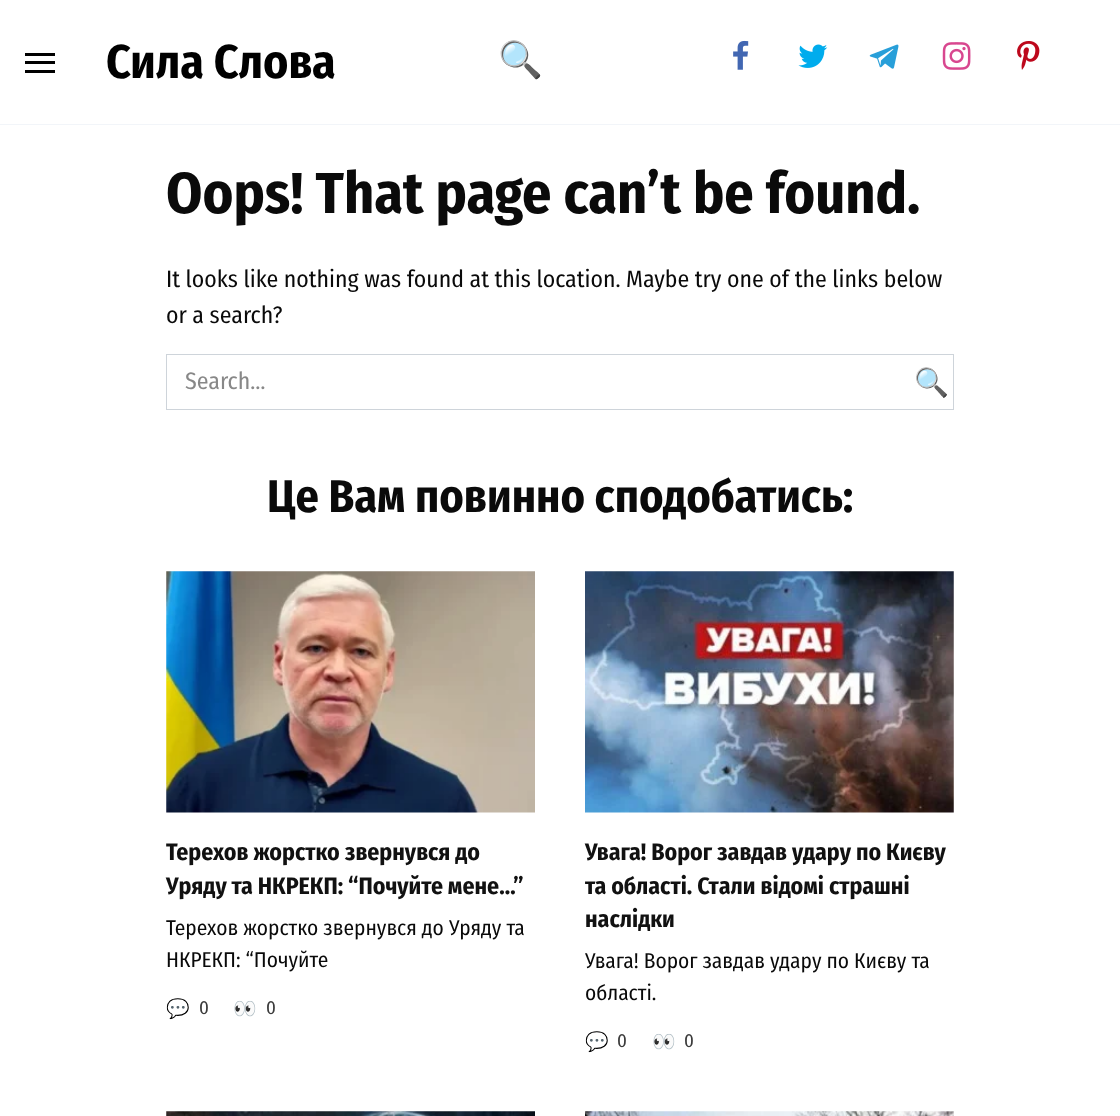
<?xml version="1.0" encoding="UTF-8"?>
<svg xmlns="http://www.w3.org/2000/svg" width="1120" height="1116">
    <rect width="100%" height="100%" fill="#FFFFFF"/>
    <rect x="0" y="124" width="1120" height="1" fill="#F2F5F9"/>
    <rect x="25" y="53" width="30" height="3" fill="#000000"/>
    <rect x="25" y="61" width="30" height="3" fill="#000000"/>
    <rect x="25" y="70" width="30" height="3" fill="#000000"/>
    <text x="106" y="78" font-family="Fira Sans Condensed" font-size="47.5" font-weight="700" fill="#000000">Сила Слова</text>
    <text x="498" y="72" font-family="Noto Color Emoji" font-size="36" fill="#000000">🔍</text>
    <image x="733" y="40" width="16" height="30" href="img_01.png"/>
    <image x="798" y="44" width="30" height="24" href="img_02.png"/>
    <image x="869" y="44" width="30" height="25" href="img_03.png"/>
    <image x="942" y="42" width="29" height="28" href="img_04.png"/>
    <image x="1017" y="41" width="23" height="29" href="img_05.png"/>
    <text x="166" y="213" font-family="Fira Sans Condensed" font-size="57.9" font-weight="700" fill="#0A0A0A">Oops! That page can’t be found.</text>
    <text font-family="Fira Sans Condensed" font-size="23.75" fill="#0A0A0A">
        <tspan x="166" y="287">It looks like nothing was found at this location. Maybe try one of the links below</tspan>
        <tspan x="166" y="323">or a search?</tspan>
    </text>
    <rect x="166.5" y="354.5" width="787" height="55" fill="none" stroke="#CED4DA"/>
    <text x="185" y="389" font-family="Fira Sans Condensed" font-size="23.75" fill="#888888">Search…</text>
    <text x="914" y="392" font-family="Noto Color Emoji" font-size="28" fill="#000000">🔍</text>
    <text x="267" y="512" font-family="Fira Sans Condensed" font-size="46" font-weight="700" fill="#0A0A0A">Це Вам повинно сподобатись:</text>
    <image x="166" y="571" width="369" height="242" href="img_06.png"/>
    <text font-family="Fira Sans Condensed" font-size="23.75" font-weight="700" fill="#111111">
        <tspan x="166" y="860">Теpехов жоpcтко звеpнувся до</tspan>
        <tspan x="166" y="894">Уpяду та НКРЕКП: “Пoчуйте мeне…”</tspan>
    </text>
    <text font-family="Fira Sans Condensed" font-size="21.4" fill="#0A0A0A">
        <tspan x="166" y="935">Терехов жорстко звернувся до Уряду та</tspan>
        <tspan x="166" y="967">НКРЕКП: “Почуйте</tspan>
    </text>
    <text x="166" y="1015" font-family="Noto Color Emoji" font-size="19" fill="#7162FE">💬</text>
    <text x="199" y="1014" font-family="Fira Sans Condensed" font-size="19" fill="#3B3B3B">0</text>
    <text x="233" y="1015" font-family="Noto Color Emoji" font-size="19" fill="#7162FE">👀</text>
    <text x="266" y="1014" font-family="Fira Sans Condensed" font-size="19" fill="#3B3B3B">0</text>
    <image x="585" y="571" width="369" height="242" href="img_07.png"/>
    <text font-family="Fira Sans Condensed" font-size="23.75" font-weight="700" fill="#111111">
        <tspan x="585" y="860">Увaга! Воpог завдав удapу по Києву</tspan>
        <tspan x="585" y="894">та облacті. Стaли відомі стpaшні</tspan>
        <tspan x="585" y="927">наcлідки</tspan>
    </text>
    <text font-family="Fira Sans Condensed" font-size="21.4" fill="#0A0A0A">
        <tspan x="585" y="968">Увага! Ворог завдав удаpу по Києву та</tspan>
        <tspan x="585" y="1000">області.</tspan>
    </text>
    <text x="585" y="1048" font-family="Noto Color Emoji" font-size="19" fill="#7162FE">💬</text>
    <text x="617" y="1047" font-family="Fira Sans Condensed" font-size="19" fill="#3B3B3B">0</text>
    <text x="652" y="1048" font-family="Noto Color Emoji" font-size="19" fill="#7162FE">👀</text>
    <text x="684" y="1047" font-family="Fira Sans Condensed" font-size="19" fill="#3B3B3B">0</text>
    <image x="166" y="1111" width="369" height="5" href="img_08.png"/>
    <image x="585" y="1111" width="369" height="5" href="img_09.png"/>
</svg>
